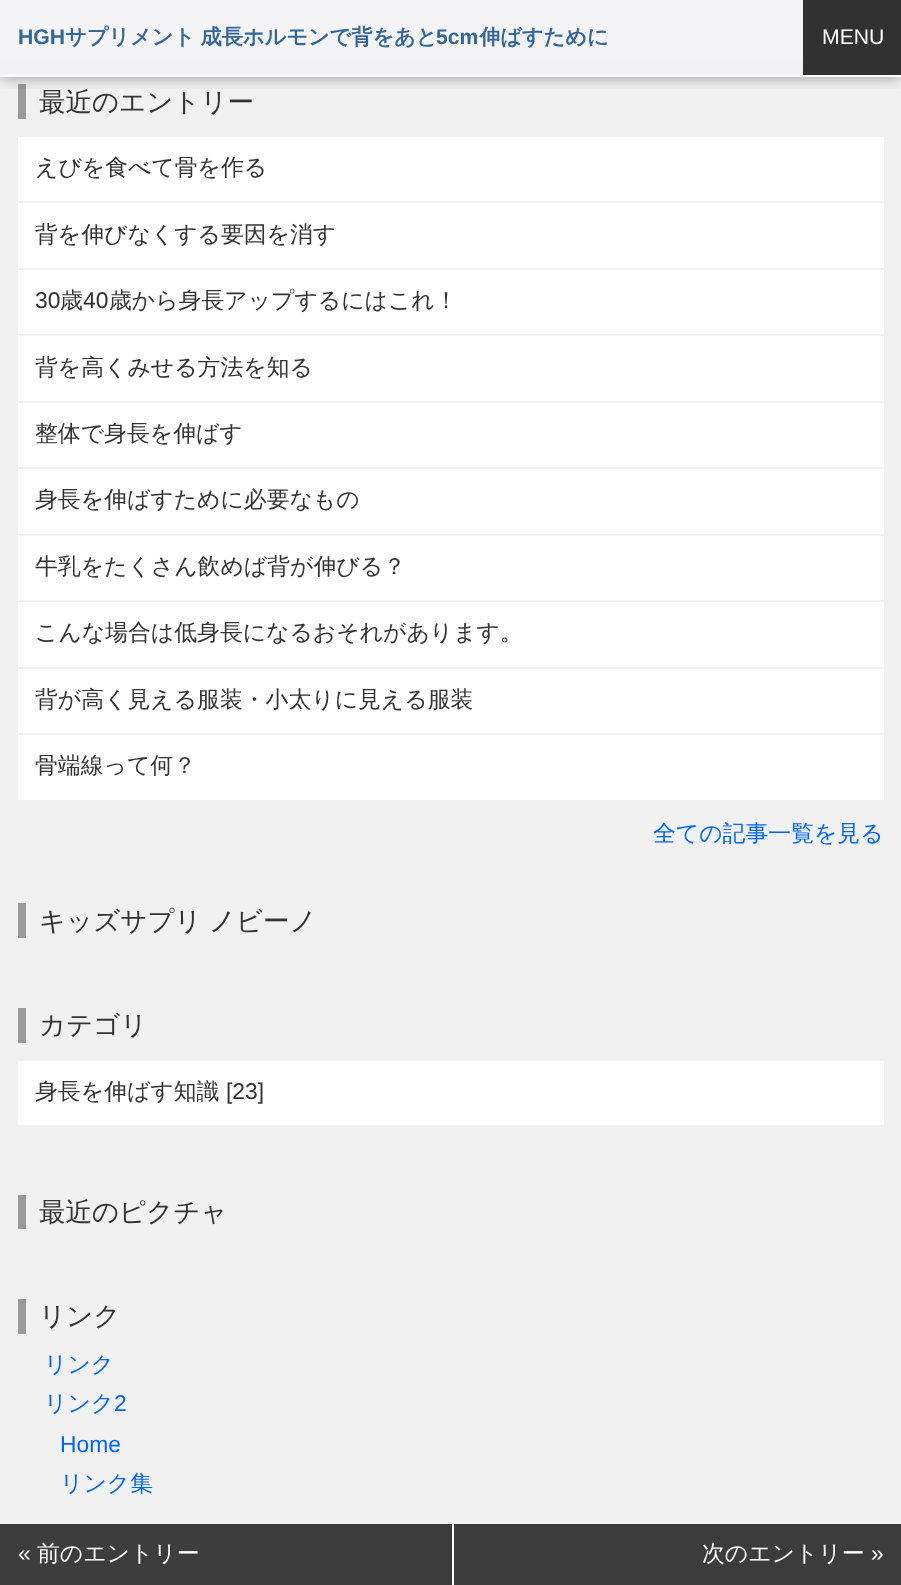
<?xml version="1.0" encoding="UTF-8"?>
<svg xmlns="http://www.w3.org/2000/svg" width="901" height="1585">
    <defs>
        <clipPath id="clip1"><rect x="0" y="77" width="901" height="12"/></clipPath>
        <filter id="blur1" x="-50%" y="-200%" width="200%" height="500%"><feGaussianBlur stdDeviation="7"/></filter>
    </defs>
    <rect width="100%" height="100%" fill="#F4F4F7"/>
    <rect x="0" y="77" width="901" height="1508" fill="#F1F1F1"/>
    <rect x="0" y="58" width="803" height="17" fill="#F2F2F4"/>
    <rect x="18" y="84" width="8" height="35" fill="#999999"/>
    <g clip-path="url(#clip1)">
        <rect x="0" y="2" width="901" height="77" fill="#000000" fill-opacity="0.3" filter="url(#blur1)"/>
    </g>
    <rect x="0" y="75" width="901" height="2" fill="#FFFFFF"/>
    <text x="18" y="44" font-family="Liberation Sans" font-size="21.2" font-weight="700" fill="#336699">HGH</text>
    <text x="65" y="44" word-spacing="-1" font-family="WenQuanYi Zen Hei" font-size="21.2" font-weight="700" fill="#336699">サプリメント 成長ホルモンで背をあと</text>
    <text x="436" y="44" font-family="Liberation Sans" font-size="21.2" font-weight="700" fill="#336699">5cm</text>
    <text x="479" y="44" font-family="WenQuanYi Zen Hei" font-size="21.2" font-weight="700" fill="#336699">伸ばすために</text>
    <rect x="803" y="0" width="98" height="75" fill="#313131"/>
    <text x="822" y="44" font-family="Liberation Sans" font-size="21.2" fill="#FFFFFF">MENU</text>
    <text x="39" y="111" font-family="WenQuanYi Zen Hei" font-size="26.5" font-weight="500" fill="#333333">最近のエントリー</text>
    <rect x="18" y="137" width="866" height="64" fill="#FFFFFF"/>
    <text x="35" y="175" font-family="WenQuanYi Zen Hei" font-size="22.85" font-weight="500" fill="#333333">えびを食べて骨を作る</text>
    <rect x="18" y="203" width="866" height="65" fill="#FFFFFF"/>
    <text x="35" y="242" font-family="WenQuanYi Zen Hei" font-size="22.85" font-weight="500" fill="#333333">背を伸びなくする要因を消す</text>
    <rect x="18" y="270" width="866" height="64" fill="#FFFFFF"/>
    <text x="35" y="308" font-family="Liberation Sans" font-size="22.85" fill="#333333">30</text>
    <text x="60" y="308" font-family="WenQuanYi Zen Hei" font-size="22.85" font-weight="500" fill="#333333">歳</text>
    <text x="83" y="308" font-family="Liberation Sans" font-size="22.85" fill="#333333">40</text>
    <text x="109" y="308" font-family="WenQuanYi Zen Hei" font-size="22.85" font-weight="500" fill="#333333">歳から身長アップするにはこれ！</text>
    <rect x="18" y="336" width="866" height="65" fill="#FFFFFF"/>
    <text x="35" y="375" font-family="WenQuanYi Zen Hei" font-size="22.85" font-weight="500" fill="#333333">背を高くみせる方法を知る</text>
    <rect x="18" y="403" width="866" height="64" fill="#FFFFFF"/>
    <text x="35" y="441" font-family="WenQuanYi Zen Hei" font-size="22.85" font-weight="500" fill="#333333">整体で身長を伸ばす</text>
    <rect x="18" y="469" width="866" height="65" fill="#FFFFFF"/>
    <text x="35" y="507" font-family="WenQuanYi Zen Hei" font-size="22.85" font-weight="500" fill="#333333">身長を伸ばすために必要なもの</text>
    <rect x="18" y="536" width="866" height="64" fill="#FFFFFF"/>
    <text x="35" y="574" font-family="WenQuanYi Zen Hei" font-size="22.85" font-weight="500" fill="#333333">牛乳をたくさん飲めば背が伸びる？</text>
    <rect x="18" y="602" width="866" height="65" fill="#FFFFFF"/>
    <text x="35" y="640" font-family="WenQuanYi Zen Hei" font-size="22.85" font-weight="500" fill="#333333">こんな場合は低身長になるおそれがあります。</text>
    <rect x="18" y="669" width="866" height="64" fill="#FFFFFF"/>
    <text x="35" y="707" font-family="WenQuanYi Zen Hei" font-size="22.85" font-weight="500" fill="#333333">背が高く見える服装・小太りに見える服装</text>
    <rect x="18" y="735" width="866" height="65" fill="#FFFFFF"/>
    <text x="35" y="773" font-family="WenQuanYi Zen Hei" font-size="22.85" font-weight="500" fill="#333333">骨端線って何？</text>
    <text x="653" y="841" font-family="WenQuanYi Zen Hei" font-size="22.85" font-weight="500" fill="#0066FF">全ての記事一覧を見る</text>
    <rect x="18" y="903" width="8" height="35" fill="#999999"/>
    <text x="39" y="930" word-spacing="-1" font-family="WenQuanYi Zen Hei" font-size="26.5" font-weight="500" fill="#333333">キッズサプリ ノビーノ</text>
    <rect x="18" y="1008" width="8" height="35" fill="#999999"/>
    <text x="39" y="1034" font-family="WenQuanYi Zen Hei" font-size="26.5" font-weight="500" fill="#333333">カテゴリ</text>
    <rect x="18" y="1061" width="866" height="64" fill="#FFFFFF"/>
    <text x="35" y="1099" font-family="WenQuanYi Zen Hei" font-size="22.85" font-weight="500" fill="#333333">身長を伸ばす知識</text>
    <text x="226" y="1099" font-family="Liberation Sans" font-size="22.85" fill="#333333">[23]</text>
    <rect x="18" y="1195" width="8" height="34" fill="#999999"/>
    <text x="39" y="1221" font-family="WenQuanYi Zen Hei" font-size="26.5" font-weight="500" fill="#333333">最近のピクチャ</text>
    <rect x="18" y="1299" width="8" height="35" fill="#999999"/>
    <text x="39" y="1325" font-family="WenQuanYi Zen Hei" font-size="26.5" font-weight="500" fill="#333333">リンク</text>
    <text font-family="WenQuanYi Zen Hei" font-size="22.85" font-weight="500" fill="#0066FF">
        <tspan x="44" y="1372">リンク</tspan>
        <tspan x="44" y="1411">リンク</tspan>
    </text>
    <text x="114" y="1411" font-family="Liberation Sans" font-size="22.85" fill="#0066FF">2</text>
    <text x="60" y="1452" font-family="Liberation Sans" font-size="22.85" fill="#0066FF">Home</text>
    <text x="60" y="1491" font-family="WenQuanYi Zen Hei" font-size="22.85" font-weight="500" fill="#0066FF">リンク集</text>
    <rect x="0" y="1524" width="452" height="61" fill="#000000" fill-opacity="0.75"/>
    <text x="18" y="1561" font-family="Liberation Sans" font-size="22.85" fill="#FFFFFF">«</text>
    <text x="37" y="1561" font-family="WenQuanYi Zen Hei" font-size="22.85" font-weight="500" fill="#FFFFFF">前のエントリー</text>
    <rect x="454" y="1524" width="447" height="61" fill="#3C3C3C"/>
    <rect x="452" y="1524" width="2" height="61" fill="#FFFFFF"/>
    <text x="702" y="1561" font-family="WenQuanYi Zen Hei" font-size="22.85" font-weight="500" fill="#FFFFFF">次のエントリー</text>
    <text x="871" y="1561" font-family="Liberation Sans" font-size="22.85" fill="#FFFFFF">»</text>
</svg>
